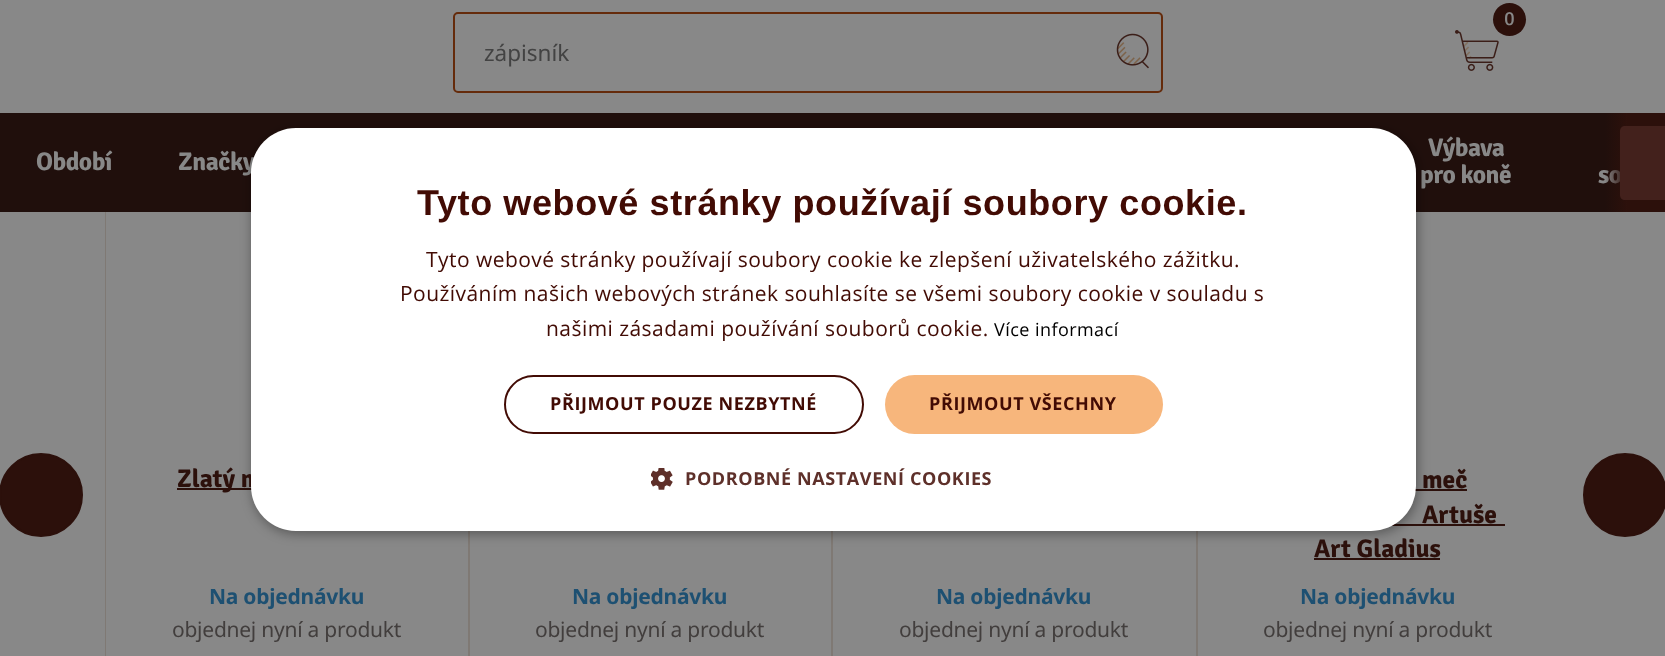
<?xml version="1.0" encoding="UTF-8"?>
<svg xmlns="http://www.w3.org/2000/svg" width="1665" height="656">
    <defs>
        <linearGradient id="g1" gradientUnits="userSpaceOnUse" x1="1665" y1="162" x2="1605" y2="162"><stop offset="0.64" stop-color="#2C100B"/><stop offset="1" stop-color="#2C100B" stop-opacity="0"/></linearGradient>
        <clipPath id="clip1"><path d="M 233 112 H 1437 V 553 H 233 Z M 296 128 H 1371 C 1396 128 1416 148 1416 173 V 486 C 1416 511 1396 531 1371 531 H 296 C 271 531 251 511 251 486 V 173 C 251 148 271 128 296 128 Z" clip-rule="evenodd"/></clipPath>
        <filter id="blur1" x="-50%" y="-200%" width="200%" height="500%"><feGaussianBlur stdDeviation="6"/></filter>
    </defs>
    <rect width="100%" height="100%" fill="#888888"/>
    <image x="1455" y="30" width="44" height="41" href="img_01.png"/>
    <circle cx="1509.5" cy="19.5" r="16.5" fill="#2C100B"/>
    <text x="1504" y="25" font-family="Signika" font-size="20" letter-spacing="-0.25" fill="#888888">0</text>
    <rect x="454" y="13" width="708" height="79" rx="4" fill="none" stroke="#652B0B" stroke-width="2"/>
    <text x="484" y="61" font-family="Noto Sans" font-size="22.5" fill="#434343">zápisník</text>
    <image x="1116" y="33" width="33" height="36" href="img_02.png"/>
    <rect x="0" y="113" width="1626" height="99" fill="#200F0C"/>
    <text x="36" y="170" font-family="Signika" font-size="25.5" font-weight="700" letter-spacing="-0.5" fill="#888888">Období</text>
    <text x="178" y="170" font-family="Signika" font-size="25.5" font-weight="700" letter-spacing="-0.5" fill="#888888">Značky</text>
    <text x="1428" y="156" font-family="Signika" font-size="25.5" font-weight="700" letter-spacing="-0.5" fill="#888888">Výbava</text>
    <text x="1420" y="183" font-family="Signika" font-size="25.5" font-weight="700" letter-spacing="-0.5" fill="#888888">pro koně</text>
    <text x="1598" y="183" font-family="Signika" font-size="25.5" font-weight="700" letter-spacing="-0.5" fill="#888888">so</text>
    <rect x="1605" y="113" width="60" height="99" fill="url(#g1)"/>
    <path d="M 1625 126 H 1665 V 200 H 1625 C 1622 200 1620 198 1620 195 V 131 C 1620 128 1622 126 1625 126 Z" fill="#43211C"/>
    <rect x="177" y="488" width="75" height="2" fill="#2C100B"/>
    <rect x="468" y="531" width="2" height="125" fill="#7F7974"/>
    <rect x="831" y="531" width="2" height="125" fill="#7F7974"/>
    <rect x="1196" y="531" width="2" height="125" fill="#7F7974"/>
    <rect x="1415" y="489" width="52" height="2" fill="#2C100B"/>
    <rect x="1391" y="524" width="114" height="2" fill="#2C100B"/>
    <g clip-path="url(#clip1)">
        <rect x="252" y="131" width="1166" height="403" rx="45" fill="#000000" fill-opacity="0.35" filter="url(#blur1)"/>
    </g>
    <text x="177" y="487" font-family="Signika" font-size="25.5" font-weight="700" fill="#2C100B">Zlatý m</text>
    <rect x="251" y="128" width="1165" height="403" rx="45" fill="#FFFFFF"/>
    <text x="417" y="215" font-family="Liberation Sans" font-size="36" font-weight="700" letter-spacing="0.6" fill="#420B04">Tyto webové stránky používají soubory cookie.</text>
    <text x="426" y="267" font-family="Open Sans" font-size="21" letter-spacing="0.45" fill="#420B04">Tyto webové stránky používají soubory cookie ke zlepšení uživatelského zážitku.</text>
    <text x="400" y="301" font-family="Open Sans" font-size="21" letter-spacing="0.45" fill="#420B04">Používáním našich webových stránek souhlasíte se všemi soubory cookie v souladu s</text>
    <text x="546" y="336" font-family="Open Sans" font-size="21" letter-spacing="0.45" fill="#420B04">našimi zásadami používání souborů cookie.</text>
    <text x="994" y="336" font-family="Open Sans" font-size="18" letter-spacing="0.45" fill="#000000">Více informací</text>
    <rect x="505" y="376" width="358" height="57" rx="28.5" fill="none" stroke="#420B04" stroke-width="2"/>
    <text x="550" y="410" font-family="Open Sans" font-size="18" font-weight="700" letter-spacing="0.6" fill="#420B04">PŘIJMOUT POUZE NEZBYTNÉ</text>
    <rect x="885" y="375" width="278" height="59" rx="29.5" fill="#F7B67C"/>
    <text x="929" y="410" font-family="Open Sans" font-size="18" font-weight="700" letter-spacing="0.6" fill="#420B04">PŘIJMOUT VŠECHNY</text>
    <image x="651" y="468" width="22" height="22" href="img_03.png"/>
    <text x="685" y="485" font-family="Open Sans" font-size="18" font-weight="700" letter-spacing="0.6" fill="#5E302A">PODROBNÉ NASTAVENÍ COOKIES</text>
    <circle cx="41" cy="495" r="41" fill="#2C100B" stroke="#2C100B" stroke-width="2"/>
    <circle cx="1625" cy="495" r="41" fill="#2C100B" stroke="#2C100B" stroke-width="2"/>
    <rect x="105" y="212" width="1" height="444" fill="#7F7974"/>
    <text x="209" y="604" font-family="Noto Sans" font-size="21" font-weight="700" letter-spacing="-0.25" fill="#1D5072">Na objednávku</text>
    <text x="172" y="637" font-family="Noto Sans" font-size="21" letter-spacing="-0.25" fill="#423E3D">objednej nyní a produkt</text>
    <text x="572" y="604" font-family="Noto Sans" font-size="21" font-weight="700" letter-spacing="-0.25" fill="#1D5072">Na objednávku</text>
    <text x="535" y="637" font-family="Noto Sans" font-size="21" letter-spacing="-0.25" fill="#423E3D">objednej nyní a produkt</text>
    <text x="936" y="604" font-family="Noto Sans" font-size="21" font-weight="700" letter-spacing="-0.25" fill="#1D5072">Na objednávku</text>
    <text x="899" y="637" font-family="Noto Sans" font-size="21" letter-spacing="-0.25" fill="#423E3D">objednej nyní a produkt</text>
    <text font-family="Signika" font-size="25.5" font-weight="700" fill="#2C100B">
        <tspan x="1422" y="488">meč</tspan>
        <tspan x="1422" y="523">Artuše</tspan>
    </text>
    <text x="1314" y="557" font-family="Signika" font-size="25.5" font-weight="700" fill="#2C100B">Art Gladius</text>
    <rect x="1314" y="558" width="126" height="2" fill="#2C100B"/>
    <text x="1300" y="604" font-family="Noto Sans" font-size="21" font-weight="700" letter-spacing="-0.25" fill="#1D5072">Na objednávku</text>
    <text x="1263" y="637" font-family="Noto Sans" font-size="21" letter-spacing="-0.25" fill="#423E3D">objednej nyní a produkt</text>
</svg>
